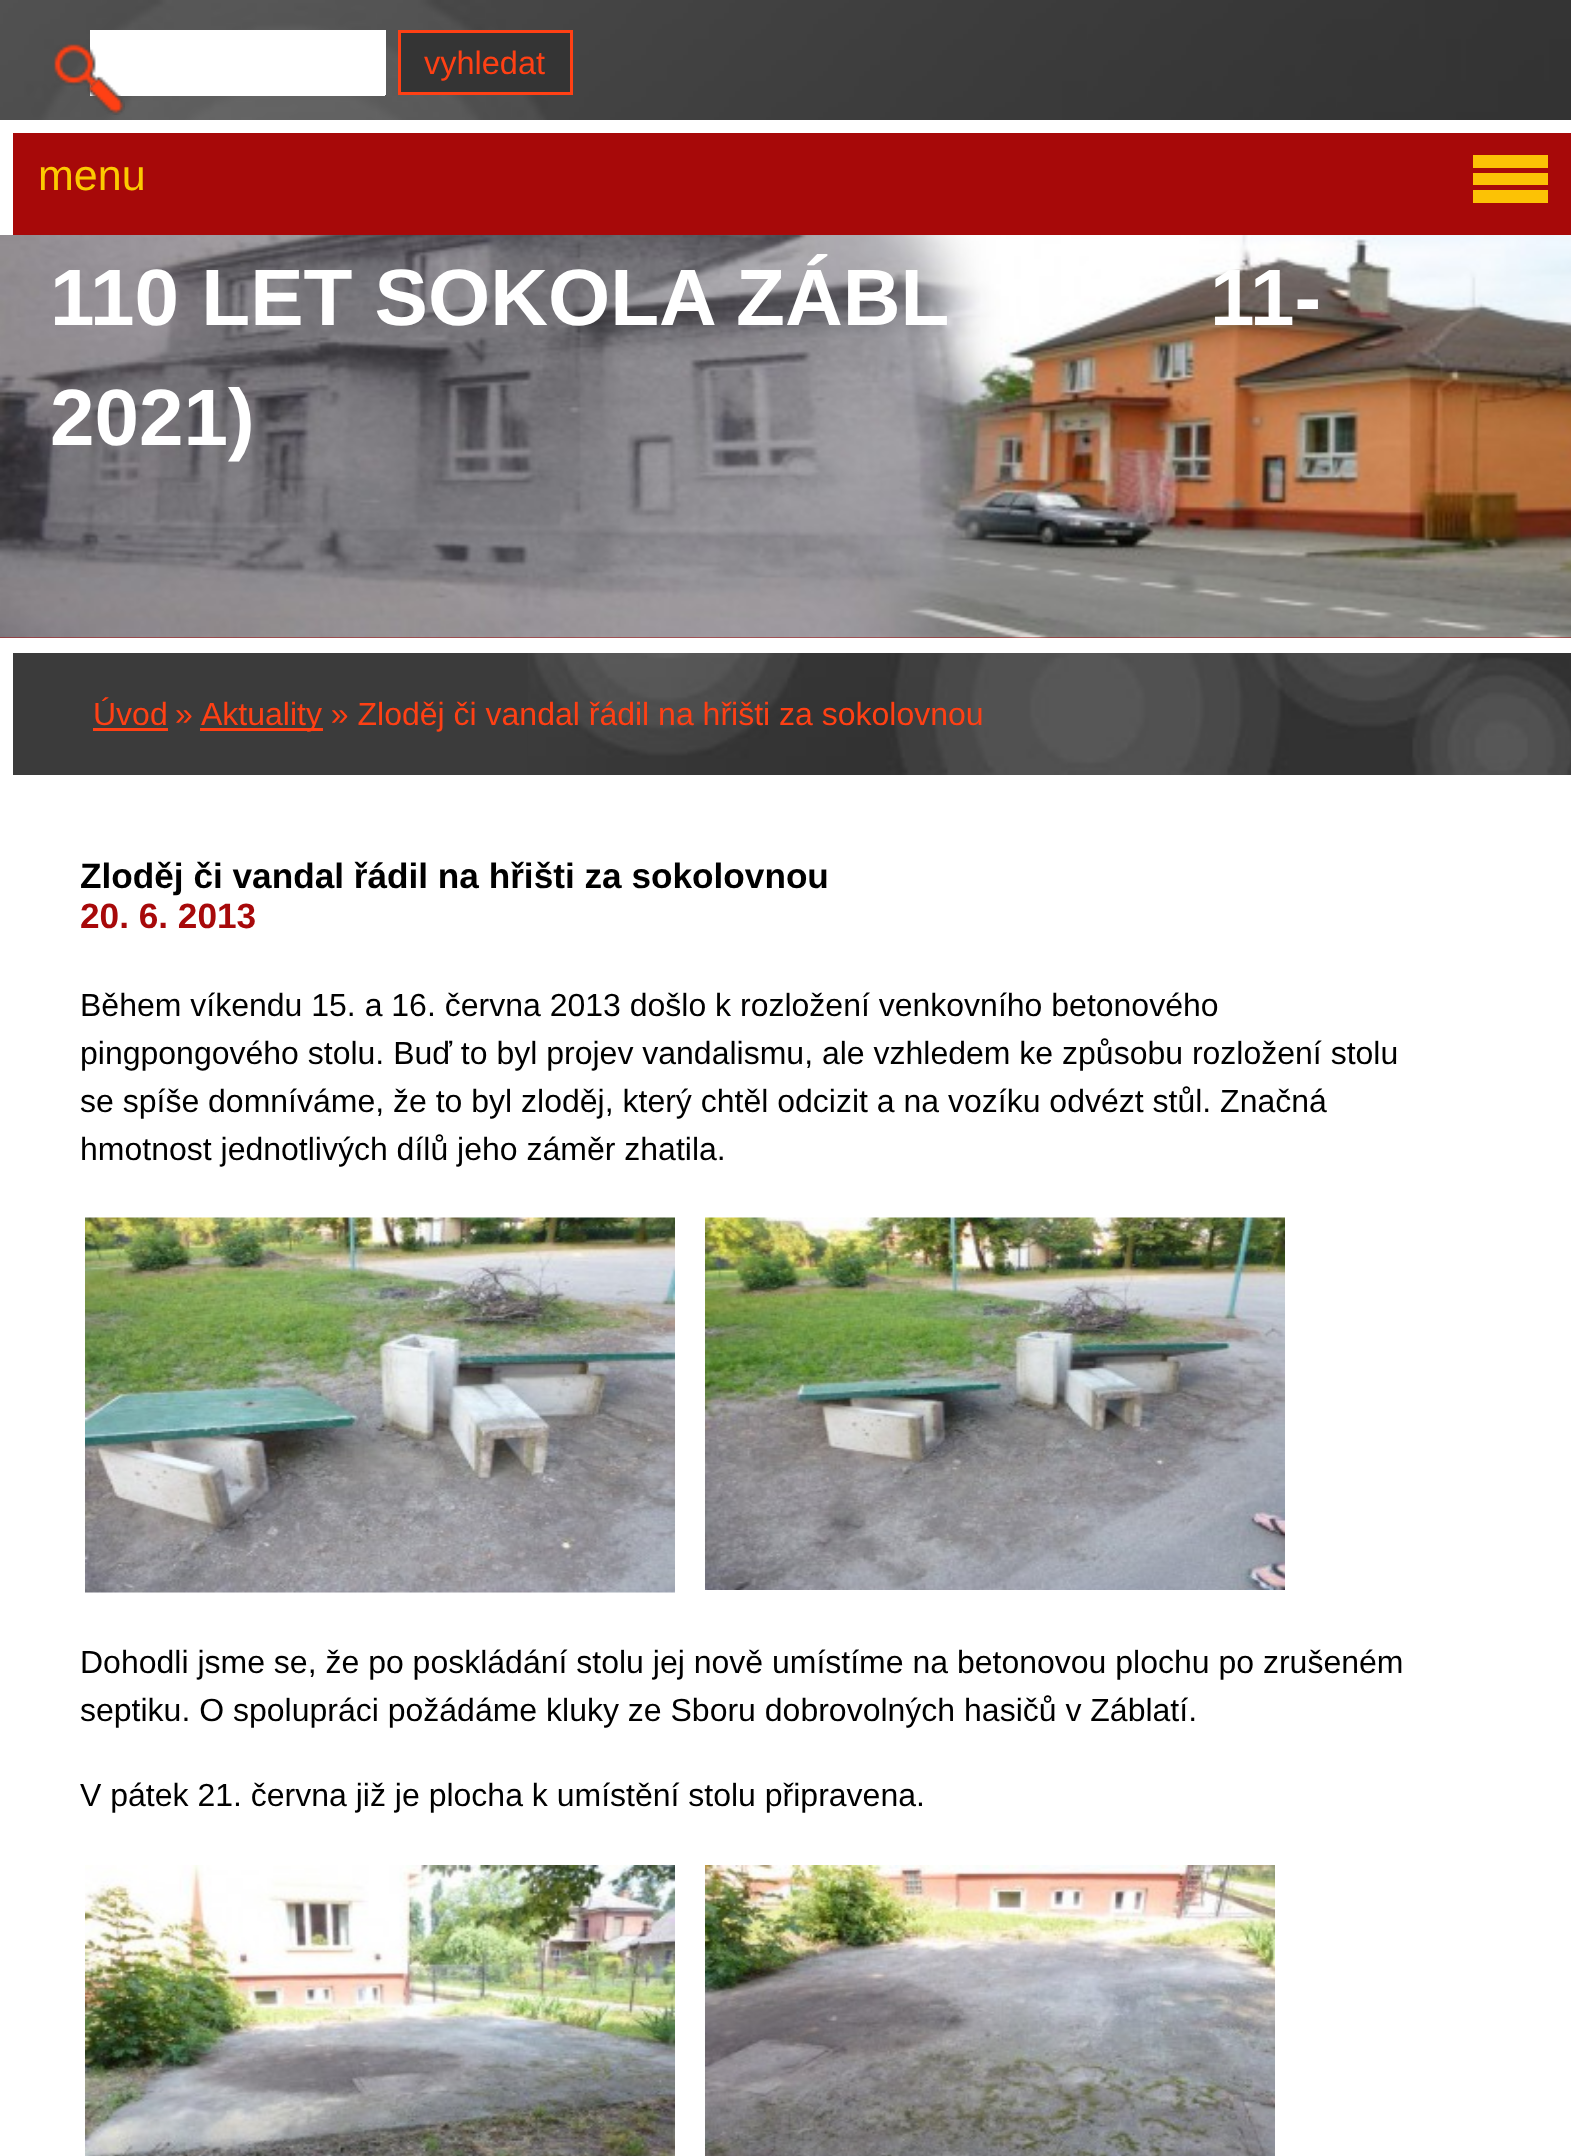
<?xml version="1.0" encoding="UTF-8"?>
<svg xmlns="http://www.w3.org/2000/svg" width="1571" height="2156">
    <rect width="100%" height="100%" fill="#FFFFFF"/>
    <image x="0" y="0" width="1571" height="120" href="img_01.png"/>
    <rect x="93" y="35" width="290" height="58" fill="#FFFFFF"/>
    <rect x="90" y="30" width="295" height="5" fill="#FFFFFF"/>
    <rect x="383" y="30" width="3" height="65" fill="#FFFFFF"/>
    <rect x="90" y="93" width="295" height="3" fill="#FFFFFF"/>
    <rect x="90" y="30" width="3" height="65" fill="#FFFFFF"/>
    <image x="54" y="44" width="71" height="71" href="img_02.png"/>
    <rect x="399.5" y="31.5" width="172" height="62" fill="#343434" stroke="#FF4014" stroke-width="3"/>
    <text x="424" y="74" font-family="Liberation Sans" font-size="32.5" fill="#FF4014">vyhledat</text>
    <rect x="13" y="133" width="1558" height="102" fill="#A70909"/>
    <text x="38" y="190" font-family="Liberation Sans" font-size="43" fill="#FCCA00">menu</text>
    <rect x="13" y="653" width="515" height="122" fill="#3B3B3B"/>
    <image x="527" y="653" width="1044" height="122" href="img_03.png"/>
    <text x="93" y="725" font-family="Liberation Sans" font-size="32" fill="#FF4014">Úvod</text>
    <rect x="93" y="728" width="75" height="3" fill="#FF4014"/>
    <text x="175" y="725" font-family="Liberation Sans" font-size="32" fill="#FF4014">»</text>
    <rect x="200" y="728" width="123" height="3" fill="#FF4014"/>
    <text x="201" y="725" font-family="Liberation Sans" font-size="32" fill="#FF4014">Aktuality » Zloděj či vandal řádil na hřišti za sokolovnou</text>
    <text x="80" y="888" font-family="Liberation Sans" font-size="35.2" font-weight="700" fill="#000000">Zloděj či vandal řádil na hřišti za sokolovnou</text>
    <text x="80" y="928" font-family="Liberation Sans" font-size="35.2" font-weight="700" fill="#A7090A">20. 6. 2013</text>
    <text font-family="Liberation Sans" font-size="32" fill="#000000">
        <tspan x="80" y="1016">Během víkendu 15. a 16. června 2013 došlo k rozložení venkovního betonového</tspan>
        <tspan x="80" y="1064">pingpongového stolu. Buď to byl projev vandalismu, ale vzhledem ke způsobu rozložení stolu</tspan>
        <tspan x="80" y="1112">se spíše domníváme, že to byl zloděj, který chtěl odcizit a na vozíku odvézt stůl. Značná</tspan>
        <tspan x="80" y="1160">hmotnost jednotlivých dílů jeho záměr zhatila.</tspan>
    </text>
    <image x="85" y="1217" width="590" height="376" href="img_04.png"/>
    <image x="705" y="1217" width="580" height="373" href="img_05.png"/>
    <text font-family="Liberation Sans" font-size="32" fill="#000000">
        <tspan x="80" y="1673">Dohodli jsme se, že po poskládání stolu jej nově umístíme na betonovou plochu po zrušeném</tspan>
        <tspan x="80" y="1721">septiku. O spolupráci požádáme kluky ze Sboru dobrovolných hasičů v Záblatí.</tspan>
    </text>
    <text x="80" y="1806" font-family="Liberation Sans" font-size="32" fill="#000000">V pátek 21. června již je plocha k umístění stolu připravena.</text>
    <image x="85" y="1865" width="590" height="291" href="img_06.png"/>
    <image x="705" y="1865" width="570" height="291" href="img_07.png"/>
    <rect x="1473" y="155" width="75" height="13" fill="#FCC205"/>
    <rect x="1473" y="173" width="75" height="12" fill="#FCC205"/>
    <rect x="1473" y="190" width="75" height="13" fill="#FCC205"/>
    <rect x="0" y="637" width="1571" height="1" fill="#A7090A"/>
    <image x="0" y="235" width="1571" height="403" href="img_08.png"/>
    <text x="50" y="325" font-family="Liberation Sans" font-size="80" font-weight="700" fill="#FFFFFF">110 LET SOKOLA ZÁBL</text>
    <text x="1210" y="325" font-family="Liberation Sans" font-size="80" font-weight="700" fill="#FFFFFF">11-</text>
    <text x="50" y="445" font-family="Liberation Sans" font-size="80" font-weight="700" fill="#FFFFFF">2021)</text>
</svg>
